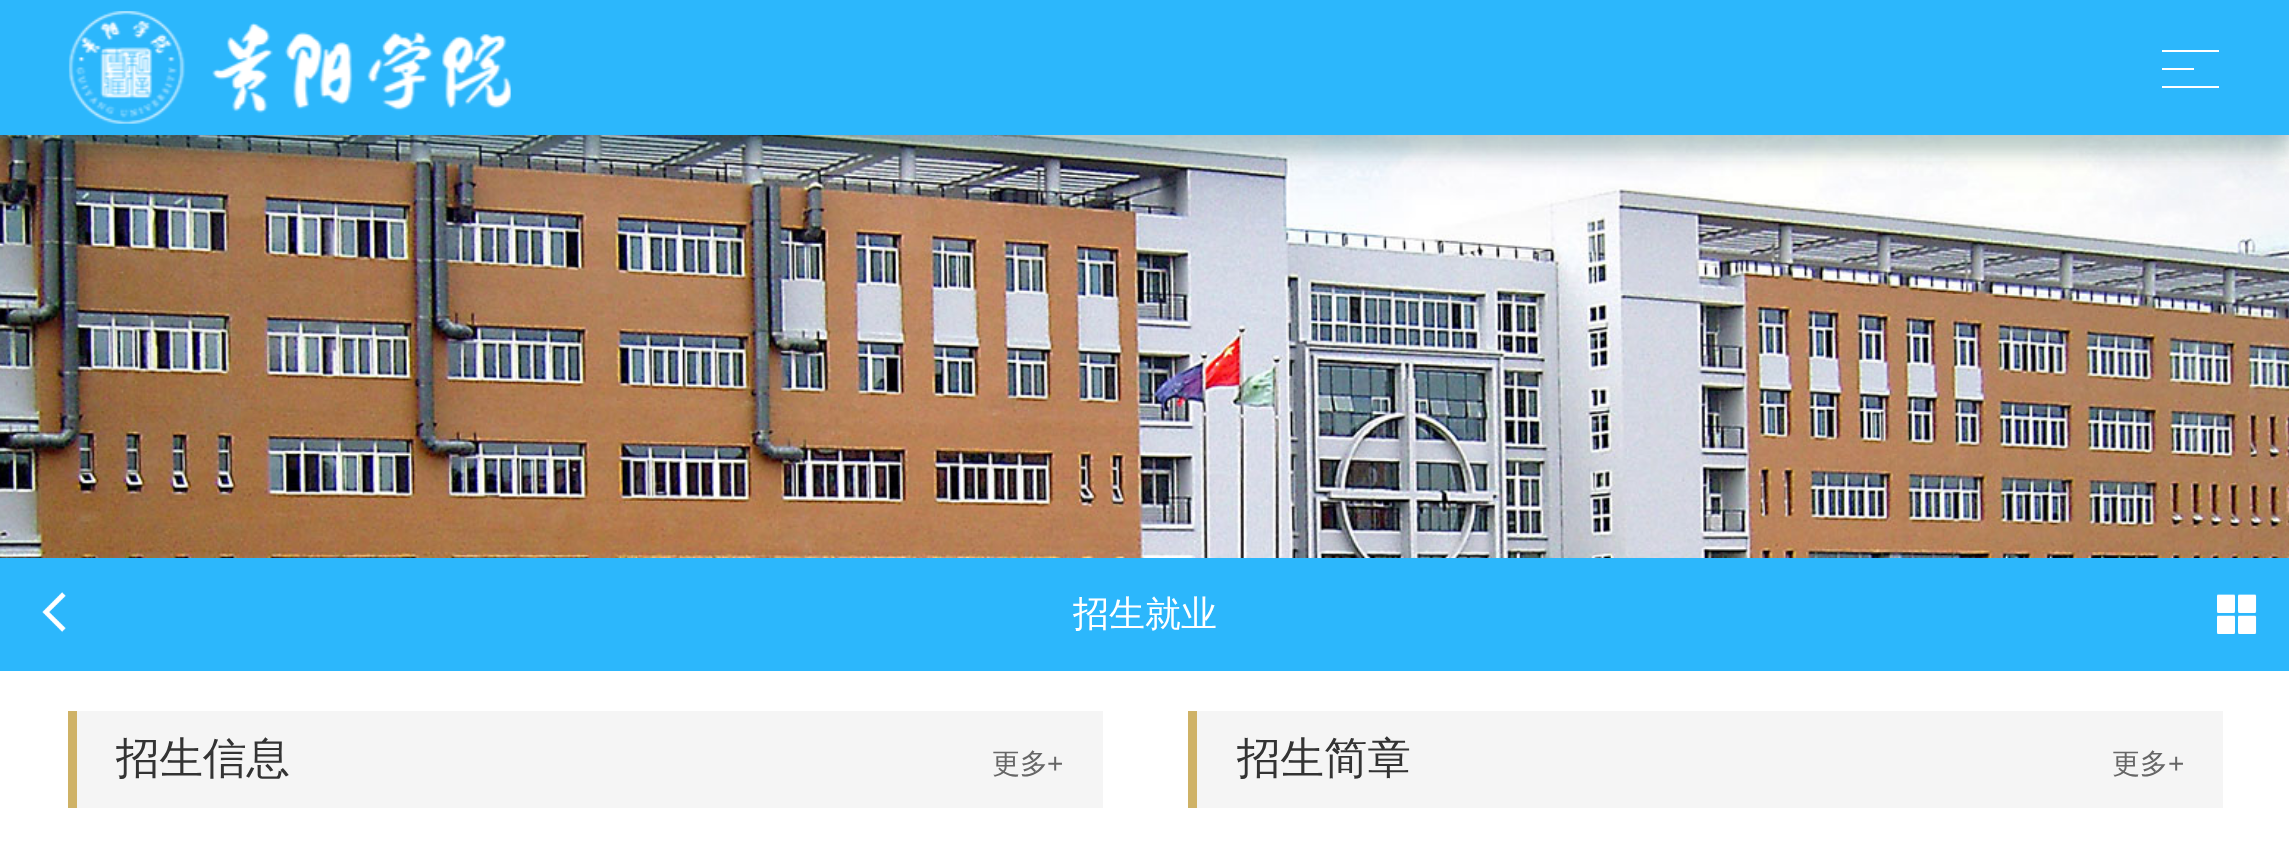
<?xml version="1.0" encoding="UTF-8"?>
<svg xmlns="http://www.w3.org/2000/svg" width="2289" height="842">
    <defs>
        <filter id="blur1" x="-50%" y="-200%" width="200%" height="500%"><feGaussianBlur stdDeviation="9"/></filter>
    </defs>
    <rect width="100%" height="100%" fill="#FFFFFF"/>
    <image x="0" y="135" width="2289" height="423" href="img_02.png"/>
    <rect x="0" y="18" width="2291" height="135" fill="#00373B" fill-opacity="0.25" filter="url(#blur1)"/>
    <rect x="0" y="0" width="2289" height="135" fill="#2CB7FC"/>
    <image x="68" y="11" width="443" height="113" href="img_01.png"/>
    <rect x="2162" y="68" width="32" height="2" fill="#FFFFFF"/>
    <rect x="2162" y="50" width="57" height="2" fill="#FFFFFF"/>
    <rect x="2162" y="86" width="57" height="2" fill="#FFFFFF"/>
    <rect x="0" y="558" width="2289" height="113" fill="#2CB7FC"/>
    <image x="42" y="592" width="24" height="41" href="img_03.png"/>
    <text x="1073" y="626" font-family="WenQuanYi Zen Hei" font-size="36" font-weight="500" fill="#FFFFFF">招生就业</text>
    <image x="2217" y="594" width="40" height="40" href="img_04.png"/>
    <rect x="77" y="711" width="1026" height="97" fill="#F5F5F5"/>
    <rect x="68" y="711" width="9" height="97" fill="#CFB266"/>
    <text x="116" y="773" font-family="WenQuanYi Zen Hei" font-size="43.5" font-weight="500" fill="#333333">招生信息</text>
    <text x="992" y="773" font-family="WenQuanYi Zen Hei" font-size="28" font-weight="500" fill="#666666">更多</text>
    <text x="1047" y="773" font-family="Liberation Sans" font-size="28" fill="#666666">+</text>
    <rect x="1197" y="711" width="1026" height="97" fill="#F5F5F5"/>
    <rect x="1188" y="711" width="9" height="97" fill="#CFB266"/>
    <text x="1237" y="773" font-family="WenQuanYi Zen Hei" font-size="43.5" font-weight="500" fill="#333333">招生简章</text>
    <text x="2112" y="773" font-family="WenQuanYi Zen Hei" font-size="28" font-weight="500" fill="#666666">更多</text>
    <text x="2168" y="773" font-family="Liberation Sans" font-size="28" fill="#666666">+</text>
</svg>
